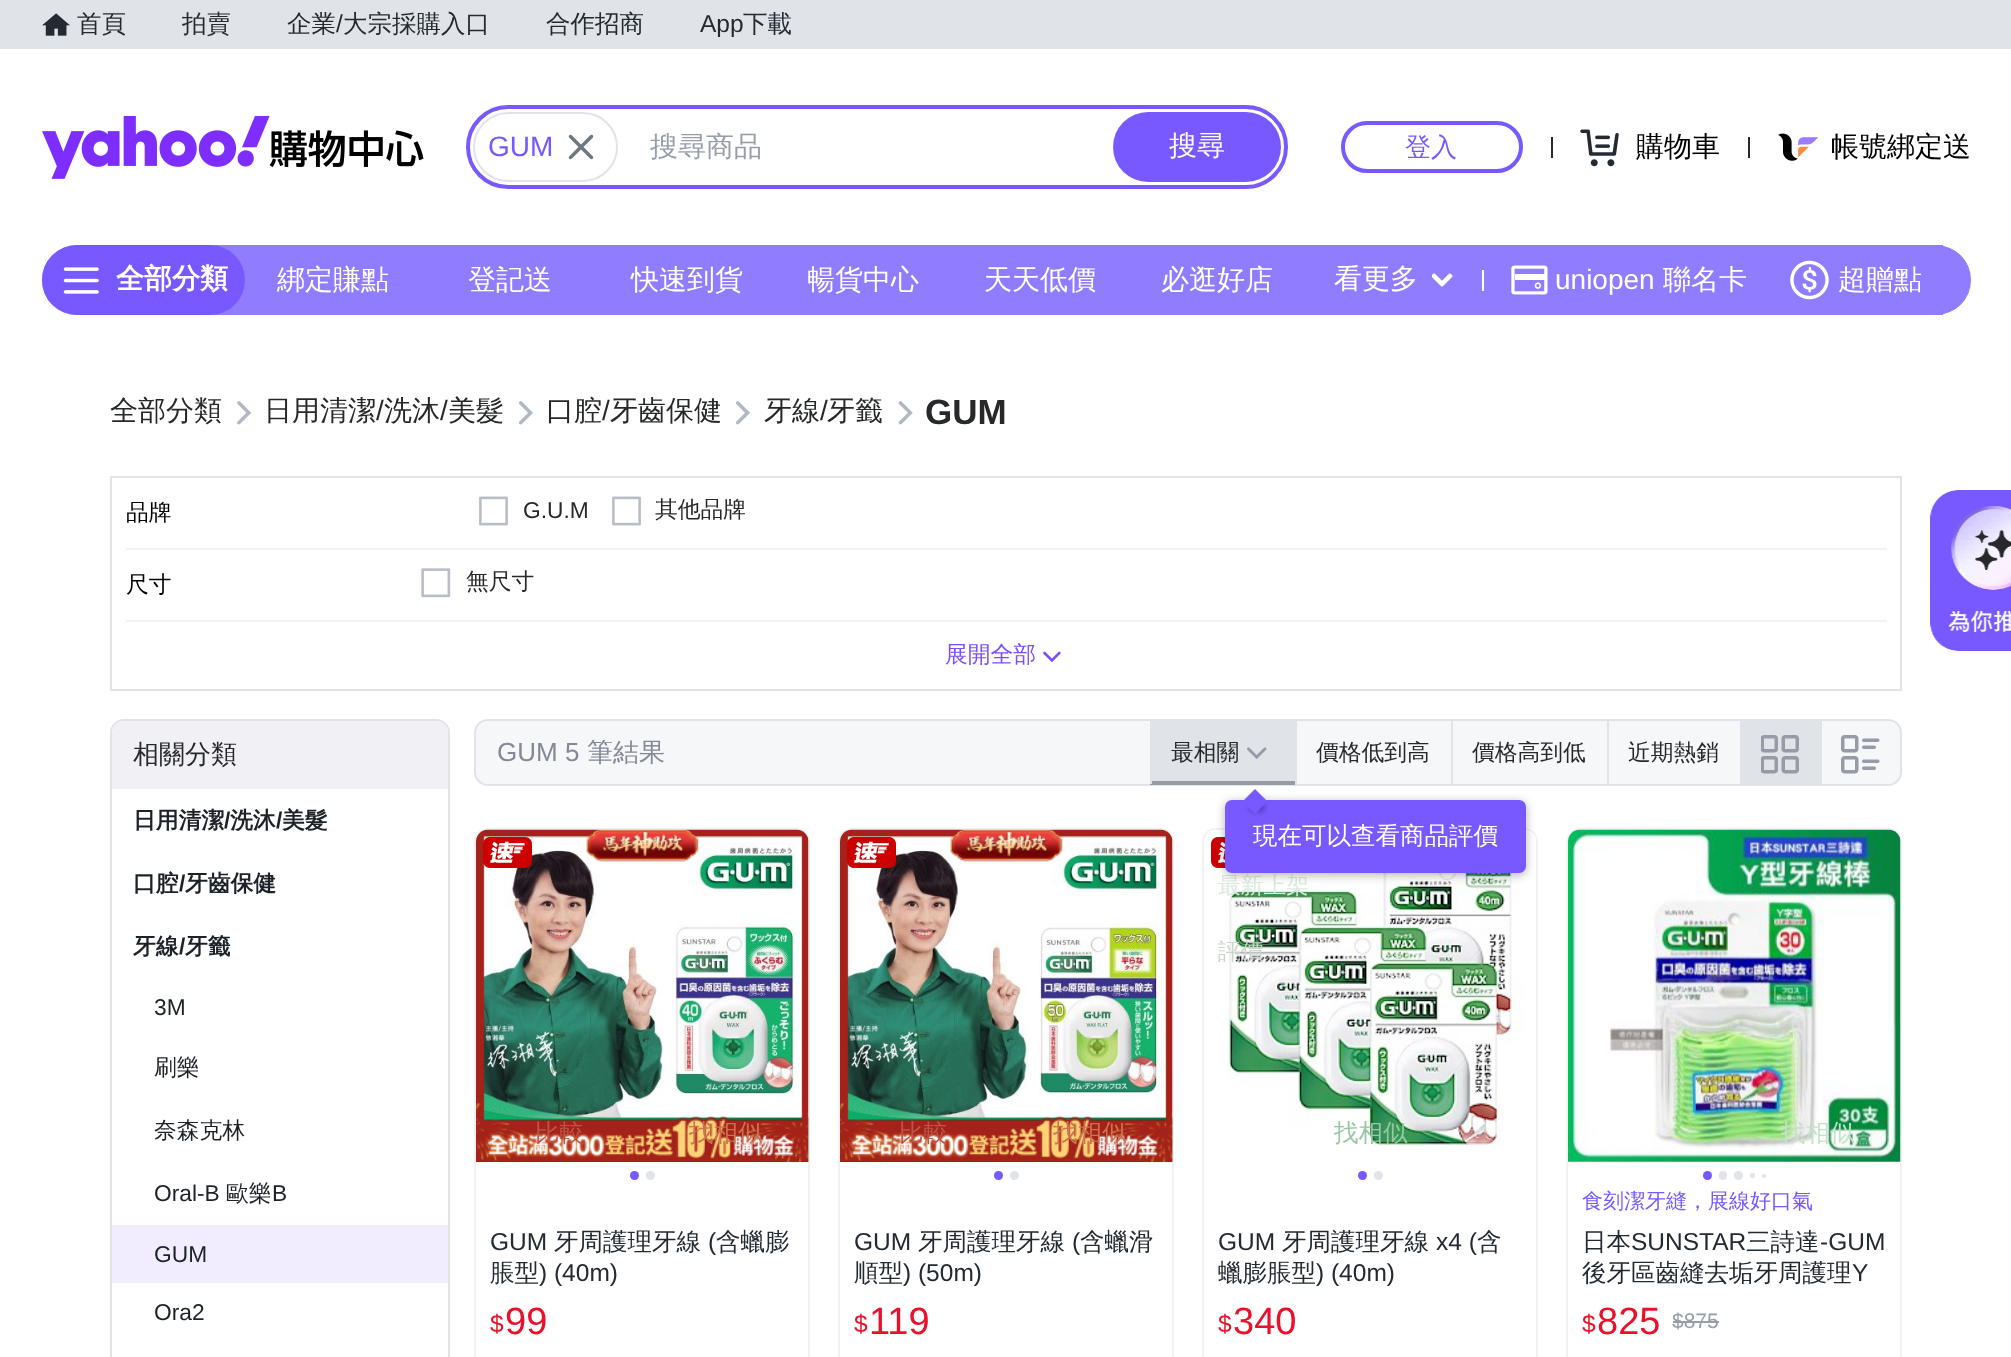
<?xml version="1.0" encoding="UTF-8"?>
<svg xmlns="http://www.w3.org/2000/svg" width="2011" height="1357">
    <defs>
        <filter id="blur1" x="-50%" y="-200%" width="200%" height="500%"><feGaussianBlur stdDeviation="5"/></filter>
        <filter id="blur2" x="-50%" y="-200%" width="200%" height="500%"><feGaussianBlur stdDeviation="2.5"/></filter>
    </defs>
    <rect width="100%" height="100%" fill="#FFFFFF"/>
    <rect x="0" y="0" width="2011" height="49" fill="#E0E4E9"/>
    <image x="42" y="13" width="28" height="23" href="img_01.png"/>
    <text x="77" y="32" font-family="WenQuanYi Zen Hei" font-size="24.5" font-weight="500" fill="#232A31">首頁</text>
    <text x="182" y="32" font-family="WenQuanYi Zen Hei" font-size="24.5" font-weight="500" fill="#232A31">拍賣</text>
    <text x="287" y="32" font-family="WenQuanYi Zen Hei" font-size="24.5" font-weight="500" fill="#232A31">企業</text>
    <text x="336" y="32" font-family="Liberation Sans" font-size="24.5" fill="#232A31">/</text>
    <text x="343" y="32" font-family="WenQuanYi Zen Hei" font-size="24.5" font-weight="500" fill="#232A31">大宗採購入口</text>
    <text x="546" y="32" font-family="WenQuanYi Zen Hei" font-size="24.5" font-weight="500" fill="#232A31">合作招商</text>
    <text x="700" y="32" font-family="Liberation Sans" font-size="24.5" fill="#232A31">App</text>
    <text x="743" y="32" font-family="WenQuanYi Zen Hei" font-size="24.5" font-weight="500" fill="#232A31">下載</text>
    <image x="42" y="116" width="382" height="63" href="img_02.png"/>
    <rect x="468" y="107" width="818" height="80" rx="40" fill="none" stroke="#7759FF" stroke-width="4"/>
    <rect x="474" y="113" width="143" height="68" rx="34" fill="none" stroke="#E0E4E9" stroke-width="2"/>
    <text x="488" y="156" font-family="Liberation Sans" font-size="28" fill="#7759FF">GUM</text>
    <image x="568" y="134" width="26" height="26" href="img_03.png"/>
    <text x="650" y="156" font-family="WenQuanYi Zen Hei" font-size="28" font-weight="500" fill="#979EA8">搜尋商品</text>
    <rect x="1113" y="112" width="168" height="70" rx="35" fill="#7759FF"/>
    <text x="1169" y="155" font-family="WenQuanYi Zen Hei" font-size="28" font-weight="500" fill="#FFFFFF">搜尋</text>
    <rect x="1343" y="123" width="178" height="48" rx="24" fill="none" stroke="#7759FF" stroke-width="4"/>
    <text x="1405" y="156" font-family="WenQuanYi Zen Hei" font-size="26" font-weight="500" fill="#7759FF">登入</text>
    <rect x="1551" y="137" width="2" height="21" fill="#232A31"/>
    <image x="1580" y="129" width="39" height="38" href="img_04.png"/>
    <text x="1636" y="156" font-family="WenQuanYi Zen Hei" font-size="28" font-weight="500" fill="#000000">購物車</text>
    <rect x="1748" y="137" width="2" height="21" fill="#232A31"/>
    <image x="1778" y="133" width="41" height="28" href="img_05.png"/>
    <text x="1831" y="156" font-family="WenQuanYi Zen Hei" font-size="28" font-weight="500" fill="#000000">帳號綁定送</text>
    <rect x="42" y="245" width="1929" height="70" rx="35" fill="#907CFF"/>
    <rect x="42" y="245" width="203" height="70" rx="35" fill="#7759FF"/>
    <image x="63" y="267" width="36" height="27" href="img_06.png"/>
    <text x="116" y="288" font-family="WenQuanYi Zen Hei" font-size="28" font-weight="700" fill="#FFFFFF">全部分類</text>
    <text x="277" y="289" font-family="WenQuanYi Zen Hei" font-size="28" font-weight="500" fill="#FFFFFF">綁定賺點</text>
    <text x="468" y="289" font-family="WenQuanYi Zen Hei" font-size="28" font-weight="500" fill="#FFFFFF">登記送</text>
    <text x="631" y="289" font-family="WenQuanYi Zen Hei" font-size="28" font-weight="500" fill="#FFFFFF">快速到貨</text>
    <text x="807" y="289" font-family="WenQuanYi Zen Hei" font-size="28" font-weight="500" fill="#FFFFFF">暢貨中心</text>
    <text x="984" y="289" font-family="WenQuanYi Zen Hei" font-size="28" font-weight="500" fill="#FFFFFF">天天低價</text>
    <text x="1161" y="289" font-family="WenQuanYi Zen Hei" font-size="28" font-weight="500" fill="#FFFFFF">必逛好店</text>
    <text x="1334" y="288" font-family="WenQuanYi Zen Hei" font-size="28" font-weight="500" fill="#FFFFFF">看更多</text>
    <image x="1432" y="273" width="21" height="14" href="img_07.png"/>
    <rect x="1482" y="270" width="2" height="21" fill="#FFFFFF"/>
    <image x="1511" y="265" width="37" height="30" href="img_08.png"/>
    <text x="1555" y="289" font-family="Liberation Sans" font-size="28" fill="#FFFFFF">uniopen</text>
    <text x="1663" y="289" font-family="WenQuanYi Zen Hei" font-size="28" font-weight="500" fill="#FFFFFF">聯名卡</text>
    <rect x="1936" y="245" width="7" height="70" fill="#907CFF"/>
    <image x="1790" y="260" width="39" height="40" href="img_09.png"/>
    <text x="1838" y="289" font-family="WenQuanYi Zen Hei" font-size="28" font-weight="500" fill="#FFFFFF">超贈點</text>
    <image x="237" y="401" width="15" height="24" href="img_10.png"/>
    <text x="110" y="420" font-family="WenQuanYi Zen Hei" font-size="28" font-weight="500" fill="#26282A">全部分類</text>
    <text x="264" y="420" font-family="WenQuanYi Zen Hei" font-size="28" font-weight="500" fill="#26282A">日用清潔</text>
    <text x="376" y="420" font-family="Liberation Sans" font-size="28" fill="#26282A">/</text>
    <text x="384" y="420" font-family="WenQuanYi Zen Hei" font-size="28" font-weight="500" fill="#26282A">洗沐</text>
    <text x="440" y="420" font-family="Liberation Sans" font-size="28" fill="#26282A">/</text>
    <text x="448" y="420" font-family="WenQuanYi Zen Hei" font-size="28" font-weight="500" fill="#26282A">美髮</text>
    <image x="519" y="401" width="14" height="24" href="img_11.png"/>
    <text x="546" y="420" font-family="WenQuanYi Zen Hei" font-size="28" font-weight="500" fill="#26282A">口腔</text>
    <text x="602" y="420" font-family="Liberation Sans" font-size="28" fill="#26282A">/</text>
    <text x="610" y="420" font-family="WenQuanYi Zen Hei" font-size="28" font-weight="500" fill="#26282A">牙齒保健</text>
    <image x="736" y="401" width="14" height="24" href="img_11.png"/>
    <text x="764" y="420" font-family="WenQuanYi Zen Hei" font-size="28" font-weight="500" fill="#26282A">牙線</text>
    <text x="820" y="420" font-family="Liberation Sans" font-size="28" fill="#26282A">/</text>
    <text x="827" y="420" font-family="WenQuanYi Zen Hei" font-size="28" font-weight="500" fill="#26282A">牙籤</text>
    <image x="898" y="401" width="15" height="24" href="img_12.png"/>
    <text x="925" y="424" font-family="Liberation Sans" font-size="35" font-weight="700" fill="#26282A">GUM</text>
    <rect x="111" y="477" width="1790" height="213" fill="none" stroke="#E0E4E9" stroke-width="2"/>
    <text x="126" y="520" font-family="WenQuanYi Zen Hei" font-size="22.75" font-weight="500" fill="#000000">品牌</text>
    <image x="479" y="496" width="29" height="30" href="img_13.png"/>
    <text x="523" y="518" font-family="Liberation Sans" font-size="22.75" fill="#26282A">G.U.M</text>
    <image x="612" y="496" width="29" height="30" href="img_13.png"/>
    <text x="655" y="517" font-family="WenQuanYi Zen Hei" font-size="22.75" font-weight="500" fill="#26282A">其他品牌</text>
    <rect x="126" y="548" width="1761" height="2" fill="#EFF1F4"/>
    <text x="126" y="592" font-family="WenQuanYi Zen Hei" font-size="22.75" font-weight="500" fill="#000000">尺寸</text>
    <image x="421" y="568" width="30" height="30" href="img_14.png"/>
    <text x="466" y="589" font-family="WenQuanYi Zen Hei" font-size="22.75" font-weight="500" fill="#26282A">無尺寸</text>
    <rect x="126" y="620" width="1761" height="2" fill="#EFF1F4"/>
    <text x="945" y="662" font-family="WenQuanYi Zen Hei" font-size="22.75" font-weight="500" fill="#7A4DFF">展開全部</text>
    <image x="1043" y="651" width="18" height="12" href="img_15.png"/>
    <rect x="111" y="720" width="338" height="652" rx="13" fill="none" stroke="#E0E4E9" stroke-width="2"/>
    <path d="M 124 721 H 436 C 442.5 721 448 726.5 448 733 V 789 H 112 V 733 C 112 726.5 117.5 721 124 721 Z" fill="#F1F1F5"/>
    <text x="133" y="763" font-family="WenQuanYi Zen Hei" font-size="26" font-weight="500" fill="#26282A">相關分類</text>
    <text x="133" y="828" font-family="WenQuanYi Zen Hei" font-size="22.75" font-weight="700" fill="#1D2228">日用清潔</text>
    <text x="224" y="828" font-family="Liberation Sans" font-size="22.75" font-weight="700" fill="#1D2228">/</text>
    <text x="230" y="828" font-family="WenQuanYi Zen Hei" font-size="22.75" font-weight="700" fill="#1D2228">洗沐</text>
    <text x="276" y="828" font-family="Liberation Sans" font-size="22.75" font-weight="700" fill="#1D2228">/</text>
    <text x="282" y="828" font-family="WenQuanYi Zen Hei" font-size="22.75" font-weight="700" fill="#1D2228">美髮</text>
    <text x="133" y="891" font-family="WenQuanYi Zen Hei" font-size="22.75" font-weight="700" fill="#1D2228">口腔</text>
    <text x="179" y="891" font-family="Liberation Sans" font-size="22.75" font-weight="700" fill="#1D2228">/</text>
    <text x="185" y="891" font-family="WenQuanYi Zen Hei" font-size="22.75" font-weight="700" fill="#1D2228">牙齒保健</text>
    <text x="133" y="954" font-family="WenQuanYi Zen Hei" font-size="22.75" font-weight="700" fill="#1D2228">牙線</text>
    <text x="179" y="954" font-family="Liberation Sans" font-size="22.75" font-weight="700" fill="#1D2228">/</text>
    <text x="185" y="954" font-family="WenQuanYi Zen Hei" font-size="22.75" font-weight="700" fill="#1D2228">牙籤</text>
    <text x="154" y="1015" font-family="Liberation Sans" font-size="22.75" fill="#1D2228">3M</text>
    <text x="154" y="1075" font-family="WenQuanYi Zen Hei" font-size="22.75" font-weight="500" fill="#1D2228">刷樂</text>
    <text x="154" y="1138" font-family="WenQuanYi Zen Hei" font-size="22.75" font-weight="500" fill="#1D2228">奈森克林</text>
    <text x="154" y="1201" font-family="Liberation Sans" font-size="22.75" fill="#1D2228">Oral-B</text>
    <text x="226" y="1201" font-family="WenQuanYi Zen Hei" font-size="22.75" font-weight="500" fill="#1D2228">歐樂</text>
    <text x="272" y="1201" font-family="Liberation Sans" font-size="22.75" fill="#1D2228">B</text>
    <rect x="112" y="1225" width="336" height="58" fill="#F1EDFF"/>
    <text x="154" y="1262" font-family="Liberation Sans" font-size="22.75" fill="#1D2228">GUM</text>
    <text x="154" y="1320" font-family="Liberation Sans" font-size="22.75" fill="#1D2228">Ora2</text>
    <rect x="475" y="720" width="1426" height="65" rx="13" fill="#F6F7F9" stroke="#E0E4E9" stroke-width="2"/>
    <text x="497" y="761" font-family="Liberation Sans" font-size="26" fill="#858996">GUM 5</text>
    <text x="587" y="761" font-family="WenQuanYi Zen Hei" font-size="26" font-weight="500" fill="#858996">筆結果</text>
    <rect x="1152" y="721" width="143" height="60" fill="#E0E4E9"/>
    <rect x="1150" y="781" width="145" height="4" fill="#979BA7"/>
    <rect x="1150" y="721" width="2" height="63" fill="#E0E4E9"/>
    <text x="1171" y="760" font-family="WenQuanYi Zen Hei" font-size="22.75" font-weight="500" fill="#26282A">最相關</text>
    <image x="1247" y="747" width="20" height="12" href="img_16.png"/>
    <rect x="1203" y="829" width="334" height="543" rx="13" fill="none" stroke="#F1F1F5" stroke-width="2"/>
    <image x="1204" y="830" width="332" height="319" href="img_24.png"/>
    <text x="1218" y="893" font-family="WenQuanYi Zen Hei" font-size="22.75" font-weight="500" fill="#DAEADD">最新上架</text>
    <text x="1218" y="959" font-family="WenQuanYi Zen Hei" font-size="22.75" font-weight="500" fill="#CCD5CD">評價</text>
    <rect x="1295" y="721" width="2" height="63" fill="#E0E4E9"/>
    <text x="1316" y="760" font-family="WenQuanYi Zen Hei" font-size="22.75" font-weight="500" fill="#26282A">價格低到高</text>
    <rect x="1451" y="721" width="2" height="63" fill="#E0E4E9"/>
    <text x="1472" y="760" font-family="WenQuanYi Zen Hei" font-size="22.75" font-weight="500" fill="#26282A">價格高到低</text>
    <rect x="1607" y="721" width="2" height="63" fill="#E0E4E9"/>
    <text x="1628" y="760" font-family="WenQuanYi Zen Hei" font-size="22.75" font-weight="500" fill="#26282A">近期熱銷</text>
    <rect x="1740" y="721" width="82" height="63" fill="#E0E4E9"/>
    <image x="1761" y="735" width="38" height="39" href="img_17.png"/>
    <image x="1841" y="735" width="39" height="39" href="img_18.png"/>
    <image x="1211" y="837" width="15" height="31" href="img_25.png"/>
    <rect x="1225" y="802" width="301" height="73" rx="7" fill="#000014" fill-opacity="0.3" filter="url(#blur1)"/>
    <rect x="1225" y="800" width="301" height="73" rx="7" fill="#7759FF"/>
    <rect x="1250" y="798" width="14" height="14" fill="#000014" fill-opacity="0.3" filter="url(#blur2)"/>
    <path d="M 1255 814 L 1242.5 801.5 L 1255 789 L 1267.5 801.5 Z" fill="#7759FF"/>
    <text x="1253" y="844" font-family="WenQuanYi Zen Hei" font-size="24.5" font-weight="500" fill="#FFFFFF">現在可以查看商品評價</text>
    <rect x="475" y="829" width="334" height="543" rx="13" fill="none" stroke="#F1F1F5" stroke-width="2"/>
    <image x="476" y="830" width="333" height="332" href="img_20.png"/>
    <image x="476" y="829" width="333" height="333" href="img_19.png"/>
    <circle cx="634.5" cy="1175.5" r="4.5" fill="#7759FF"/>
    <circle cx="650.5" cy="1175.5" r="4.5" fill="#E0E4E9"/>
    <image x="483" y="837" width="49" height="31" href="img_21.png"/>
    <text x="535" y="1141" font-family="WenQuanYi Zen Hei" font-size="24.5" font-weight="500" fill="#BB5548">比較</text>
    <text x="689" y="1141" font-family="WenQuanYi Zen Hei" font-size="24.5" font-weight="500" fill="#CB734E">找相似</text>
    <text x="490" y="1250" font-family="Liberation Sans" font-size="24.5" fill="#232A31">GUM</text>
    <text x="554" y="1250" font-family="WenQuanYi Zen Hei" font-size="24.5" font-weight="500" fill="#232A31">牙周護理牙線</text>
    <text x="708" y="1250" font-family="Liberation Sans" font-size="24.5" fill="#232A31">(</text>
    <text x="716" y="1250" font-family="WenQuanYi Zen Hei" font-size="24.5" font-weight="500" fill="#232A31">含蠟膨</text>
    <text x="490" y="1281" font-family="WenQuanYi Zen Hei" font-size="24.5" font-weight="500" fill="#232A31">脹型</text>
    <text x="539" y="1281" font-family="Liberation Sans" font-size="24.5" fill="#232A31">) (40m)</text>
    <text x="490" y="1332" font-family="Liberation Sans" font-size="24.5" fill="#EB0F29">$</text>
    <text x="505" y="1334" font-family="Liberation Sans" font-size="38" fill="#EB0F29">99</text>
    <rect x="839" y="829" width="334" height="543" rx="13" fill="none" stroke="#F1F1F5" stroke-width="2"/>
    <image x="840" y="830" width="333" height="332" href="img_23.png"/>
    <image x="840" y="829" width="333" height="333" href="img_22.png"/>
    <circle cx="998.5" cy="1175.5" r="4.5" fill="#7759FF"/>
    <circle cx="1014.5" cy="1175.5" r="4.5" fill="#E0E4E9"/>
    <image x="847" y="837" width="49" height="31" href="img_21.png"/>
    <text x="899" y="1141" font-family="WenQuanYi Zen Hei" font-size="24.5" font-weight="500" fill="#BB5548">比較</text>
    <text x="1053" y="1141" font-family="WenQuanYi Zen Hei" font-size="24.5" font-weight="500" fill="#CB734E">找相似</text>
    <text x="854" y="1250" font-family="Liberation Sans" font-size="24.5" fill="#232A31">GUM</text>
    <text x="918" y="1250" font-family="WenQuanYi Zen Hei" font-size="24.5" font-weight="500" fill="#232A31">牙周護理牙線</text>
    <text x="1072" y="1250" font-family="Liberation Sans" font-size="24.5" fill="#232A31">(</text>
    <text x="1080" y="1250" font-family="WenQuanYi Zen Hei" font-size="24.5" font-weight="500" fill="#232A31">含蠟滑</text>
    <text x="854" y="1281" font-family="WenQuanYi Zen Hei" font-size="24.5" font-weight="500" fill="#232A31">順型</text>
    <text x="903" y="1281" font-family="Liberation Sans" font-size="24.5" fill="#232A31">) (50m)</text>
    <text x="854" y="1332" font-family="Liberation Sans" font-size="24.5" fill="#EB0F29">$</text>
    <text x="869" y="1334" font-family="Liberation Sans" font-size="38" fill="#EB0F29">119</text>
    <circle cx="1362.5" cy="1175.5" r="4.5" fill="#7759FF"/>
    <circle cx="1378.5" cy="1175.5" r="4.5" fill="#E0E4E9"/>
    <text x="1334" y="1141" font-family="WenQuanYi Zen Hei" font-size="24.5" font-weight="500" fill="#99C6A7">找相似</text>
    <text x="1218" y="1250" font-family="Liberation Sans" font-size="24.5" fill="#232A31">GUM</text>
    <text x="1282" y="1250" font-family="WenQuanYi Zen Hei" font-size="24.5" font-weight="500" fill="#232A31">牙周護理牙線</text>
    <text x="1436" y="1250" font-family="Liberation Sans" font-size="24.5" fill="#232A31">x4 (</text>
    <text x="1477" y="1250" font-family="WenQuanYi Zen Hei" font-size="24.5" font-weight="500" fill="#232A31">含</text>
    <text x="1218" y="1281" font-family="WenQuanYi Zen Hei" font-size="24.5" font-weight="500" fill="#232A31">蠟膨脹型</text>
    <text x="1316" y="1281" font-family="Liberation Sans" font-size="24.5" fill="#232A31">) (40m)</text>
    <text x="1218" y="1332" font-family="Liberation Sans" font-size="24.5" fill="#EB0F29">$</text>
    <text x="1233" y="1334" font-family="Liberation Sans" font-size="38" fill="#EB0F29">340</text>
    <rect x="1567" y="829" width="334" height="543" rx="13" fill="none" stroke="#F1F1F5" stroke-width="2"/>
    <image x="1568" y="829" width="333" height="333" href="img_26.png"/>
    <circle cx="1707.5" cy="1175.5" r="4.5" fill="#7759FF"/>
    <rect x="1719" y="1171" width="8" height="9" rx="4" fill="#E0E4E9"/>
    <circle cx="1738.5" cy="1175.5" r="4.5" fill="#E0E4E9"/>
    <circle cx="1752.5" cy="1175.5" r="2.5" fill="#E0E4E9"/>
    <circle cx="1764" cy="1176" r="2" fill="#E0E4E9"/>
    <text x="1781" y="1141" font-family="WenQuanYi Zen Hei" font-size="24.5" font-weight="500" fill="#C6E0CA">找相似</text>
    <text x="1582" y="1208" font-family="WenQuanYi Zen Hei" font-size="21" font-weight="500" fill="#7759FF">食刻潔牙縫，展線好口氣</text>
    <text x="1582" y="1250" font-family="WenQuanYi Zen Hei" font-size="24.5" font-weight="500" fill="#232A31">日本</text>
    <text x="1631" y="1250" font-family="Liberation Sans" font-size="24.5" fill="#232A31">SUNSTAR</text>
    <text x="1746" y="1250" font-family="WenQuanYi Zen Hei" font-size="24.5" font-weight="500" fill="#232A31">三詩達</text>
    <text x="1820" y="1250" font-family="Liberation Sans" font-size="24.5" fill="#232A31">-GUM</text>
    <text x="1582" y="1281" font-family="WenQuanYi Zen Hei" font-size="24.5" font-weight="500" fill="#232A31">後牙區齒縫去垢牙周護理</text>
    <text x="1852" y="1281" font-family="Liberation Sans" font-size="24.5" fill="#232A31">Y</text>
    <text x="1582" y="1332" font-family="Liberation Sans" font-size="24.5" fill="#EB0F29">$</text>
    <text x="1597" y="1334" font-family="Liberation Sans" font-size="38" fill="#EB0F29">825</text>
    <text x="1672" y="1328" font-family="Liberation Sans" font-size="21" fill="#979EA8">$875</text>
    <rect x="1673" y="1321" width="46" height="2" fill="#979EA8"/>
    <image x="1930" y="490" width="81" height="161" href="img_27.png"/>
</svg>
